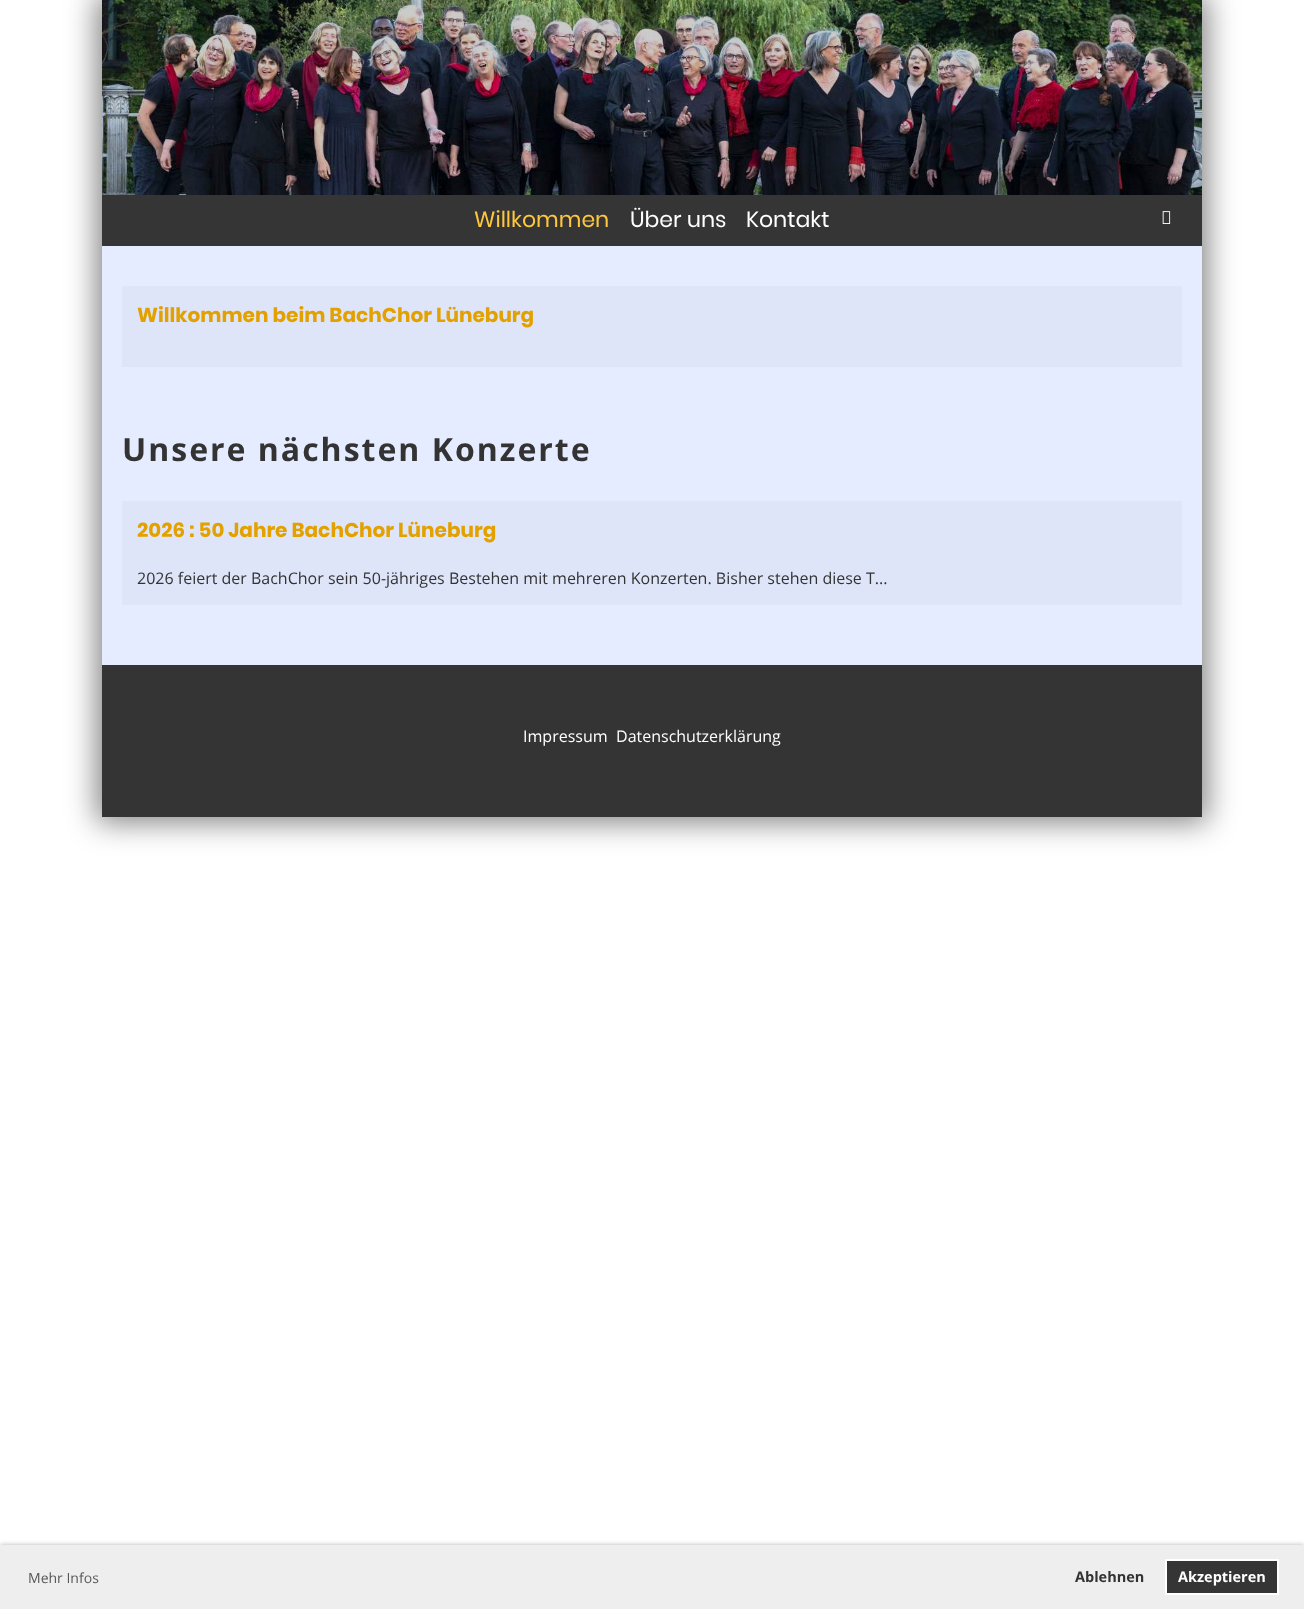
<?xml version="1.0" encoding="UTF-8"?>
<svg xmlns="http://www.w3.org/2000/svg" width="1304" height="1609">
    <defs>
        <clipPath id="clip1"><path d="M 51 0 H 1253 V 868 H 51 Z M 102 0 H 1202 V 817 H 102 Z" clip-rule="evenodd"/></clipPath>
        <filter id="blur1" x="-50%" y="-200%" width="200%" height="500%"><feGaussianBlur stdDeviation="15"/></filter>
        <filter id="blur2" x="-50%" y="-200%" width="200%" height="500%"><feGaussianBlur stdDeviation="2.5"/></filter>
    </defs>
    <rect width="100%" height="100%" fill="#FFFFFF"/>
    <image x="102" y="0" width="1100" height="195" href="img_01.png"/>
    <rect x="102" y="246" width="1100" height="419" fill="#E6ECFF"/>
    <rect x="102" y="665" width="1100" height="152" fill="#353434"/>
    <g clip-path="url(#clip1)">
        <rect x="97" y="-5" width="1110" height="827" fill="#000000" fill-opacity="0.5" filter="url(#blur1)"/>
    </g>
    <rect x="102" y="195" width="1100" height="51" fill="#353535"/>
    <text x="474" y="227" font-family="Poppins" font-size="22" fill="#FFC73D">Willkommen</text>
    <text x="630" y="227" font-family="Poppins" font-size="22" fill="#FFFFFF">Über uns</text>
    <text x="746" y="227" font-family="Poppins" font-size="22" fill="#FFFFFF">Kontakt</text>
    <image x="1162" y="211" width="9" height="13" href="img_02.png"/>
    <rect x="122" y="286" width="1060" height="81" fill="#DFE5F9"/>
    <text x="137" y="322" font-family="Poppins" font-size="20" font-weight="700" fill="#E3A100">Willkommen beim BachChor Lüneburg</text>
    <text x="122" y="461" font-family="Open Sans" font-size="32" font-weight="700" letter-spacing="2" fill="#333333">Unsere nächsten Konzerte</text>
    <rect x="122" y="501" width="1060" height="104" fill="#DFE5F9"/>
    <text x="137" y="537" font-family="Poppins" font-size="20" font-weight="700" fill="#E3A100">2026 : 50 Jahre BachChor Lüneburg</text>
    <text x="137" y="584" font-family="Open Sans" font-size="16" fill="#333333">2026 feiert der BachChor sein 50-jähriges Bestehen mit mehreren Konzerten. Bisher stehen diese T...</text>
    <text x="523" y="742" font-family="Open Sans" font-size="16" fill="#FFFFFF">Impressum</text>
    <text x="616" y="742" font-family="Open Sans" font-size="16" fill="#FFFFFF">Datenschutzerklärung</text>
    <rect x="0" y="1545" width="1304" height="64" fill="#000000" fill-opacity="0.3" filter="url(#blur2)"/>
    <rect x="0" y="1545" width="1304" height="64" fill="#EEEEEE"/>
    <text x="28" y="1583" font-family="Open Sans" font-size="14" fill="#585858">Mehr Infos</text>
    <text x="1075" y="1582" font-family="Open Sans" font-size="14.5" font-weight="700" fill="#333333">Ablehnen</text>
    <rect x="1166" y="1560" width="112" height="34" fill="#353535" stroke="#FFFFFF" stroke-width="2"/>
    <text x="1178" y="1582" font-family="Open Sans" font-size="14.5" font-weight="700" fill="#FFFFFF">Akzeptieren</text>
</svg>
